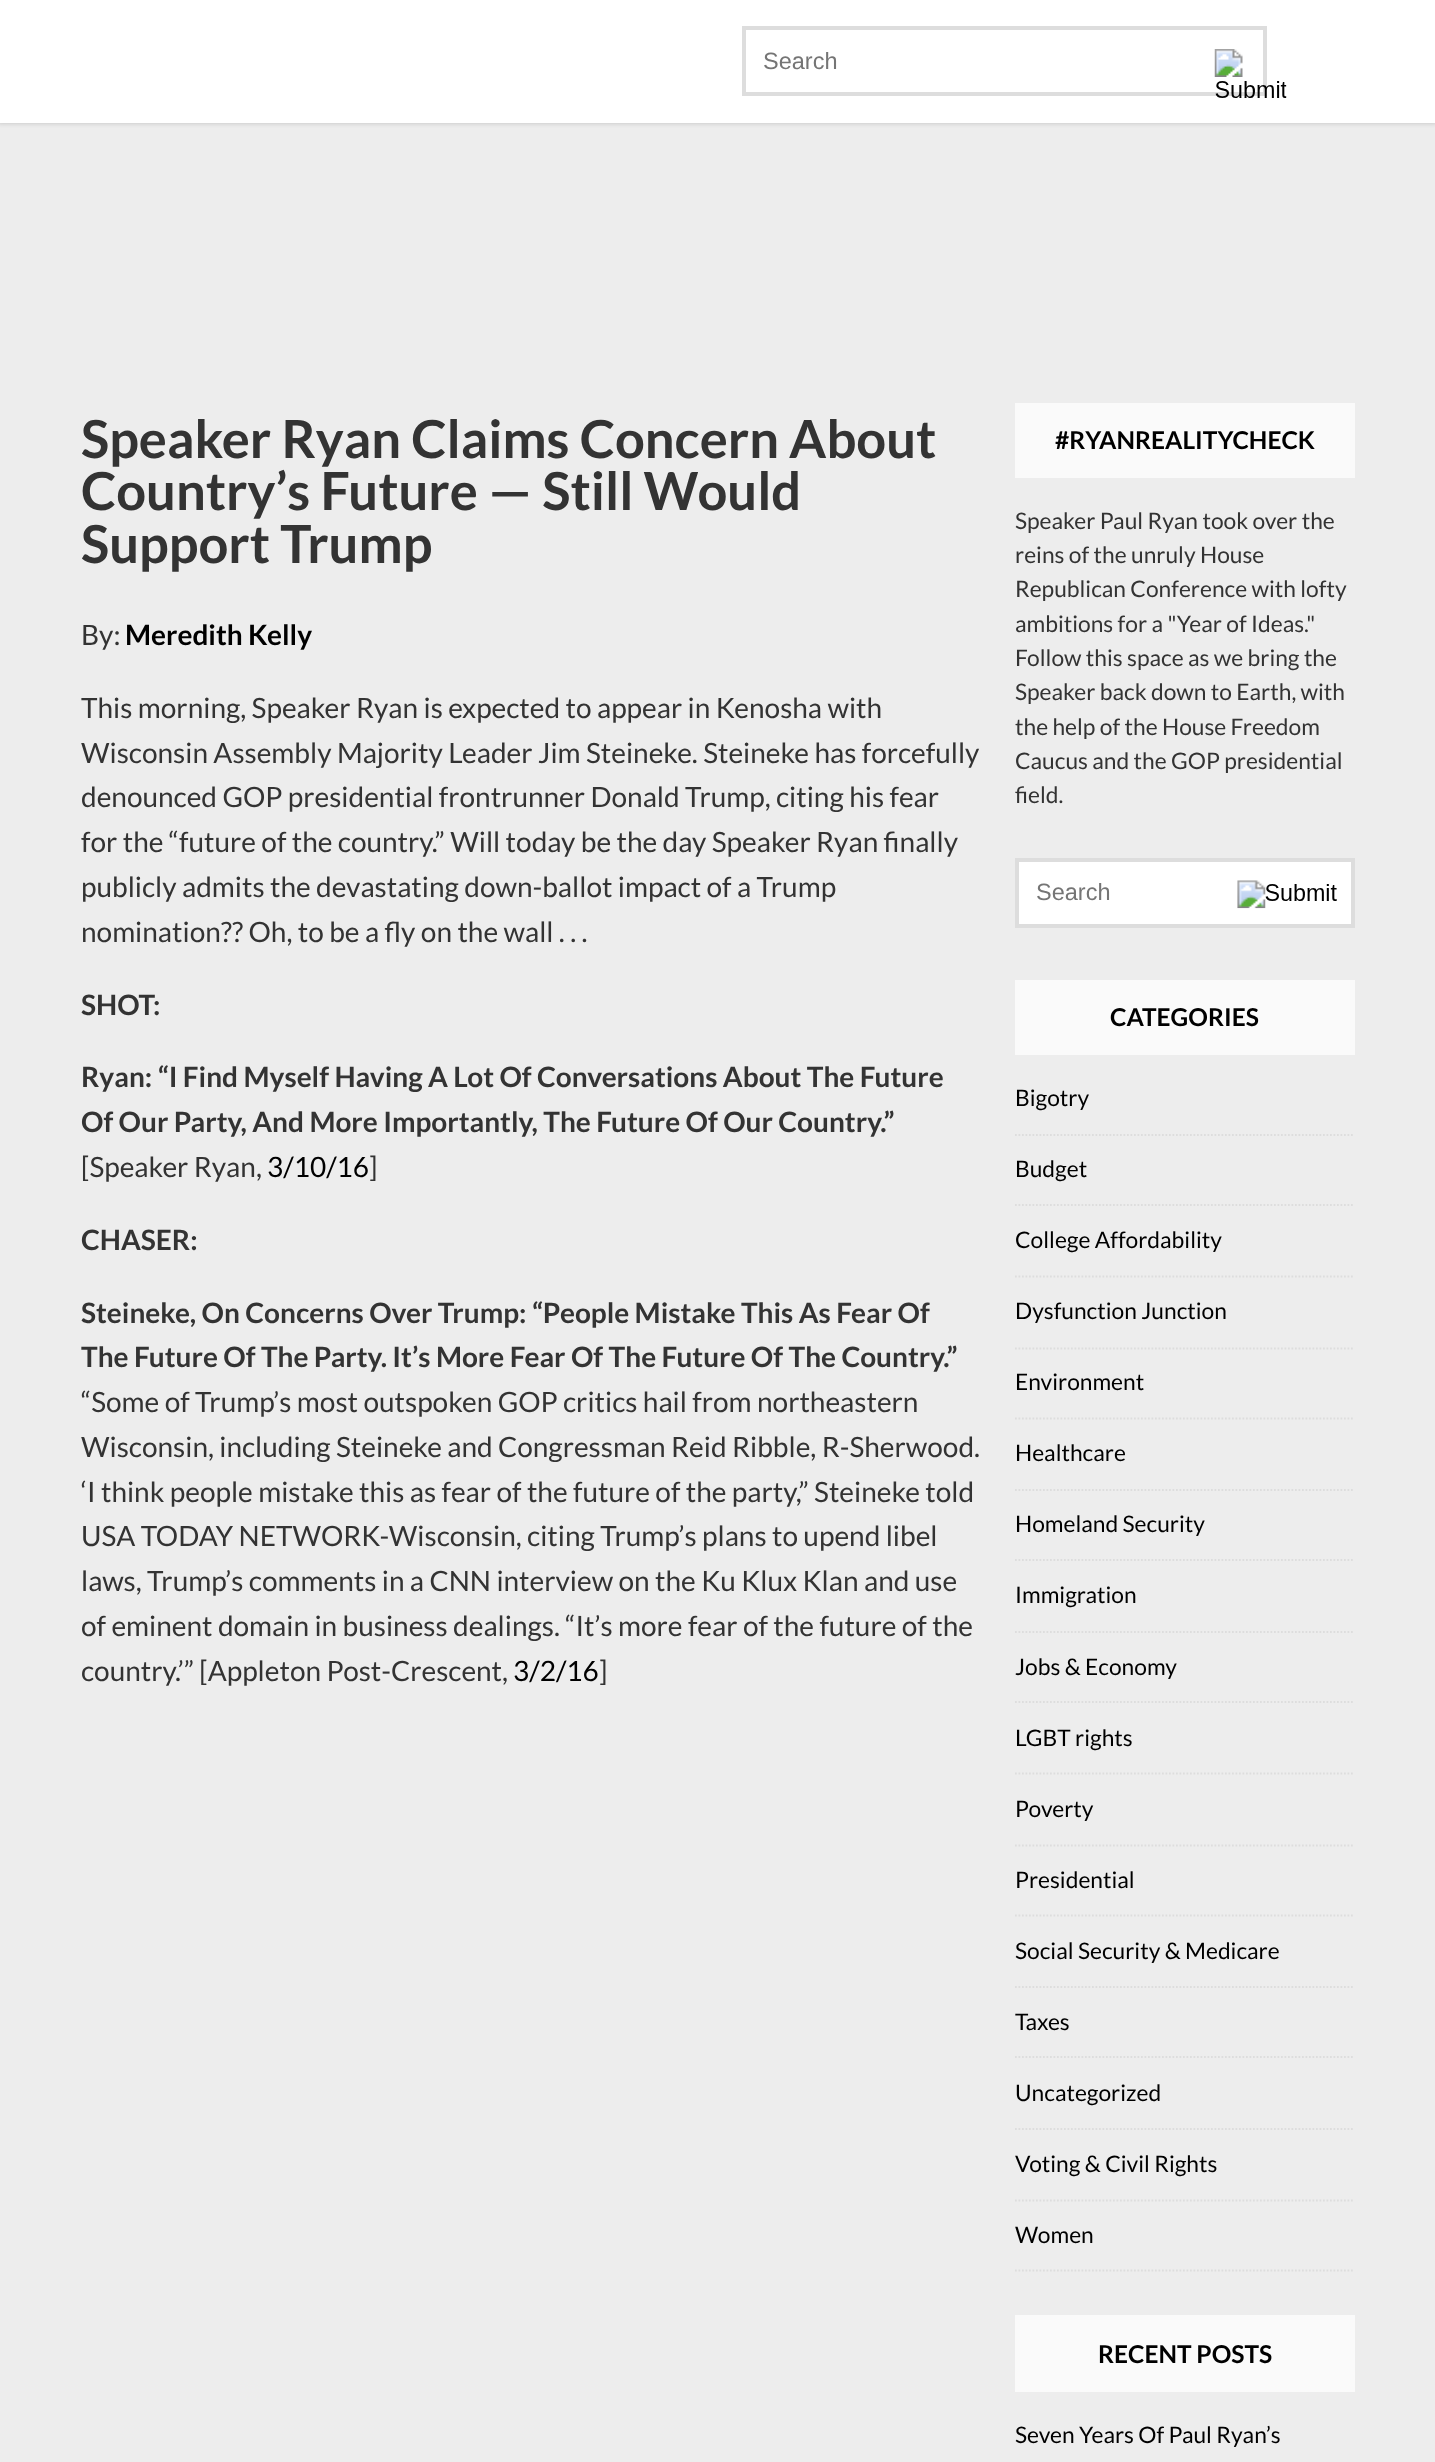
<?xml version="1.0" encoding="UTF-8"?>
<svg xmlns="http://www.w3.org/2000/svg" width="1435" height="2462">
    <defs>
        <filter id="blur1" x="-50%" y="-200%" width="200%" height="500%"><feGaussianBlur stdDeviation="2"/></filter>
        <clipPath id="clip1"><rect x="81" y="403" width="899" height="1317"/></clipPath>
    </defs>
    <rect width="100%" height="100%" fill="#EDEDED"/>
    <rect x="-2" y="-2" width="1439" height="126" fill="#CCCCCC" filter="url(#blur1)"/>
    <rect x="0" y="0" width="1435" height="123" fill="#FFFFFF"/>
    <rect x="744" y="28" width="521" height="66" fill="none" stroke="#DDDDDD" stroke-width="4"/>
    <text x="763" y="69" font-family="Liberation Sans" font-size="23.5" fill="#757575">Search</text>
    <image x="1214" y="49" width="73" height="49" href="img_01.png"/>
    <text font-family="Lato" font-size="52.5" font-weight="700" fill="#333333">
        <tspan x="81" y="458">Speaker Ryan Claims Concern About</tspan>
        <tspan x="81" y="510">Country’s Future — Still Would</tspan>
        <tspan x="81" y="563">Support Trump</tspan>
    </text>
    <text x="81" y="645" font-family="Lato" font-size="28" fill="#333333">By:</text>
    <text x="125" y="645" font-family="Lato" font-size="28" font-weight="700" fill="#000000">Meredith Kelly</text>
    <text font-family="Lato" font-size="28" fill="#333333">
        <tspan x="81" y="718">This morning, Speaker Ryan is expected to appear in Kenosha with</tspan>
        <tspan x="81" y="763">Wisconsin Assembly Majority Leader Jim Steineke. Steineke has forcefully</tspan>
        <tspan x="81" y="807">denounced GOP presidential frontrunner Donald Trump, citing his fear</tspan>
        <tspan x="81" y="852">for the “future of the country.” Will today be the day Speaker Ryan finally</tspan>
        <tspan x="81" y="897">publicly admits the devastating down-ballot impact of a Trump</tspan>
        <tspan x="81" y="942">nomination?? Oh, to be a fly on the wall . . .</tspan>
    </text>
    <text x="81" y="1015" font-family="Lato" font-size="28" font-weight="700" fill="#333333">SHOT:</text>
    <text font-family="Lato" font-size="28" font-weight="700" fill="#333333">
        <tspan x="81" y="1087">Ryan: “I Find Myself Having A Lot Of Conversations About The Future</tspan>
        <tspan x="81" y="1132">Of Our Party, And More Importantly, The Future Of Our Country.”</tspan>
    </text>
    <text x="81" y="1177" font-family="Lato" font-size="28" fill="#333333">[Speaker Ryan,</text>
    <text x="267" y="1177" font-family="Lato" font-size="28" fill="#000000">3/10/16</text>
    <text x="369" y="1177" font-family="Lato" font-size="28" fill="#333333">]</text>
    <text x="81" y="1250" font-family="Lato" font-size="28" font-weight="700" fill="#333333">CHASER:</text>
    <text x="81" y="1323" font-family="Lato" font-size="28" font-weight="700" fill="#333333">Steineke, On Concerns Over Trump: “People Mistake This As Fear Of</text>
    <g clip-path="url(#clip1)">
        <text x="81" y="1367" font-family="Lato" font-size="28" font-weight="700" fill="#333333">The Future Of The Party. It’s More Fear Of The Future Of The Country.”</text>
    </g>
    <text font-family="Lato" font-size="28" fill="#333333">
        <tspan x="81" y="1412">“Some of Trump’s most outspoken GOP critics hail from northeastern</tspan>
        <tspan x="81" y="1457">Wisconsin, including Steineke and Congressman Reid Ribble, R-Sherwood.</tspan>
        <tspan x="81" y="1502">‘I think people mistake this as fear of the future of the party,” Steineke told</tspan>
        <tspan x="81" y="1546">USA TODAY NETWORK-Wisconsin, citing Trump’s plans to upend libel</tspan>
        <tspan x="81" y="1591">laws, Trump’s comments in a CNN interview on the Ku Klux Klan and use</tspan>
        <tspan x="81" y="1636">of eminent domain in business dealings. “It’s more fear of the future of the</tspan>
        <tspan x="81" y="1681">country.’” [Appleton Post-Crescent,</tspan>
    </text>
    <text x="513" y="1681" font-family="Lato" font-size="28" fill="#000000">3/2/16</text>
    <text x="599" y="1681" font-family="Lato" font-size="28" fill="#333333">]</text>
    <rect x="1015" y="403" width="340" height="75" fill="#FAFAFA"/>
    <text x="1055" y="449" font-family="Lato" font-size="24.5" font-weight="700" fill="#000000">#RYANREALITYCHECK</text>
    <text font-family="Lato" font-size="22.75" fill="#333333">
        <tspan x="1015" y="529">Speaker Paul Ryan took over the</tspan>
        <tspan x="1015" y="563">reins of the unruly House</tspan>
        <tspan x="1015" y="597">Republican Conference with lofty</tspan>
        <tspan x="1015" y="632">ambitions for a "Year of Ideas."</tspan>
        <tspan x="1015" y="666">Follow this space as we bring the</tspan>
        <tspan x="1015" y="700">Speaker back down to Earth, with</tspan>
        <tspan x="1015" y="735">the help of the House Freedom</tspan>
        <tspan x="1015" y="769">Caucus and the GOP presidential</tspan>
        <tspan x="1015" y="803">field.</tspan>
    </text>
    <rect x="1017" y="860" width="336" height="66" fill="#FFFFFF" stroke="#DDDDDD" stroke-width="4"/>
    <text x="1036" y="900" font-family="Liberation Sans" font-size="23.5" fill="#757575">Search</text>
    <image x="1237" y="880" width="100" height="29" href="img_02.png"/>
    <rect x="1015" y="980" width="340" height="75" fill="#FAFAFA"/>
    <text x="1110" y="1026" font-family="Lato" font-size="24.5" font-weight="700" fill="#000000">CATEGORIES</text>
    <path d="M 1015 1135 H 1354.5" fill="none" stroke="#DDDDDD" stroke-width="1.8" stroke-dasharray="1.75 1.75"/>
    <text x="1015" y="1106" font-family="Lato" font-size="22.75" fill="#000000">Bigotry</text>
    <path d="M 1015 1205 H 1354.5" fill="none" stroke="#DDDDDD" stroke-width="1.8" stroke-dasharray="1.75 1.75"/>
    <text x="1015" y="1177" font-family="Lato" font-size="22.75" fill="#000000">Budget</text>
    <path d="M 1015 1276.5 H 1354.5" fill="none" stroke="#DDDDDD" stroke-width="1.8" stroke-dasharray="1.75 1.75"/>
    <text x="1015" y="1248" font-family="Lato" font-size="22.75" fill="#000000">College Affordability</text>
    <path d="M 1015 1348.5 H 1354.5" fill="none" stroke="#DDDDDD" stroke-width="1.8" stroke-dasharray="1.75 1.75"/>
    <text x="1015" y="1319" font-family="Lato" font-size="22.75" fill="#000000">Dysfunction Junction</text>
    <path d="M 1015 1418.5 H 1354.5" fill="none" stroke="#DDDDDD" stroke-width="1.8" stroke-dasharray="1.75 1.75"/>
    <text x="1015" y="1390" font-family="Lato" font-size="22.75" fill="#000000">Environment</text>
    <path d="M 1015 1490 H 1354.5" fill="none" stroke="#DDDDDD" stroke-width="1.8" stroke-dasharray="1.75 1.75"/>
    <text x="1015" y="1461" font-family="Lato" font-size="22.75" fill="#000000">Healthcare</text>
    <path d="M 1015 1560 H 1354.5" fill="none" stroke="#DDDDDD" stroke-width="1.8" stroke-dasharray="1.75 1.75"/>
    <text x="1015" y="1532" font-family="Lato" font-size="22.75" fill="#000000">Homeland Security</text>
    <path d="M 1015 1632 H 1354.5" fill="none" stroke="#DDDDDD" stroke-width="1.8" stroke-dasharray="1.75 1.75"/>
    <text x="1015" y="1603" font-family="Lato" font-size="22.75" fill="#000000">Immigration</text>
    <path d="M 1015 1702 H 1354.5" fill="none" stroke="#DDDDDD" stroke-width="1.8" stroke-dasharray="1.75 1.75"/>
    <text x="1015" y="1675" font-family="Lato" font-size="22.75" fill="#000000">Jobs &amp; Economy</text>
    <path d="M 1015 1773.5 H 1354.5" fill="none" stroke="#DDDDDD" stroke-width="1.8" stroke-dasharray="1.75 1.75"/>
    <text x="1015" y="1746" font-family="Lato" font-size="22.75" fill="#000000">LGBT rights</text>
    <path d="M 1015 1845.5 H 1354.5" fill="none" stroke="#DDDDDD" stroke-width="1.8" stroke-dasharray="1.75 1.75"/>
    <text x="1015" y="1817" font-family="Lato" font-size="22.75" fill="#000000">Poverty</text>
    <path d="M 1015 1915.5 H 1354.5" fill="none" stroke="#DDDDDD" stroke-width="1.8" stroke-dasharray="1.75 1.75"/>
    <text x="1015" y="1888" font-family="Lato" font-size="22.75" fill="#000000">Presidential</text>
    <path d="M 1015 1987 H 1354.5" fill="none" stroke="#DDDDDD" stroke-width="1.8" stroke-dasharray="1.75 1.75"/>
    <text x="1015" y="1959" font-family="Lato" font-size="22.75" fill="#000000">Social Security &amp; Medicare</text>
    <path d="M 1015 2057 H 1354.5" fill="none" stroke="#DDDDDD" stroke-width="1.8" stroke-dasharray="1.75 1.75"/>
    <text x="1015" y="2030" font-family="Lato" font-size="22.75" fill="#000000">Taxes</text>
    <path d="M 1015 2129 H 1354.5" fill="none" stroke="#DDDDDD" stroke-width="1.8" stroke-dasharray="1.75 1.75"/>
    <text x="1015" y="2101" font-family="Lato" font-size="22.75" fill="#000000">Uncategorized</text>
    <path d="M 1015 2200.5 H 1354.5" fill="none" stroke="#DDDDDD" stroke-width="1.8" stroke-dasharray="1.75 1.75"/>
    <text x="1015" y="2172" font-family="Lato" font-size="22.75" fill="#000000">Voting &amp; Civil Rights</text>
    <path d="M 1015 2270.5 H 1354.5" fill="none" stroke="#DDDDDD" stroke-width="1.8" stroke-dasharray="1.75 1.75"/>
    <text x="1015" y="2243" font-family="Lato" font-size="22.75" fill="#000000">Women</text>
    <rect x="1015" y="2315" width="340" height="77" fill="#FAFAFA"/>
    <text x="1098" y="2363" font-family="Lato" font-size="24.5" font-weight="700" fill="#000000">RECENT POSTS</text>
    <text x="1015" y="2443" font-family="Lato" font-size="22.75" fill="#000000">Seven Years Of Paul Ryan’s</text>
</svg>
